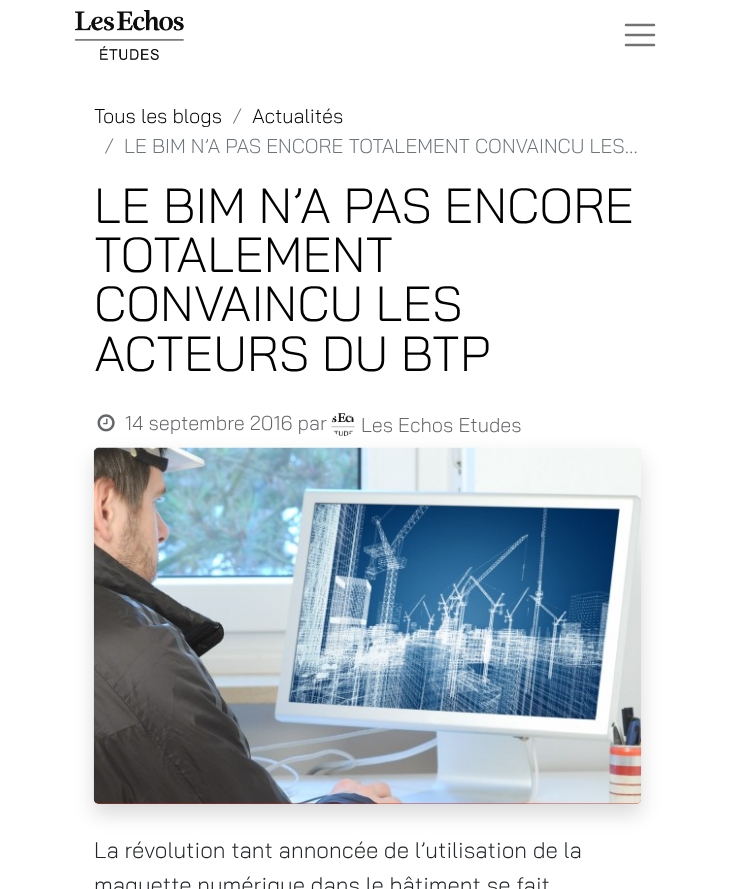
<?xml version="1.0" encoding="UTF-8"?>
<svg xmlns="http://www.w3.org/2000/svg" width="735" height="889">
    <defs>
        <filter id="blur1" x="-50%" y="-200%" width="200%" height="500%"><feGaussianBlur stdDeviation="10"/></filter>
    </defs>
    <rect width="100%" height="100%" fill="#FFFFFF"/>
    <image x="75" y="10" width="109" height="50" href="img_01.png"/>
    <path d="M 626 25 H 654 M 626 35 H 654 M 626 45 H 654" fill="none" stroke="#737373" stroke-width="2.5" stroke-linecap="round"/>
    <text x="94" y="123" font-family="'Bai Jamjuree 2'" font-size="20" font-weight="300" fill="#000000">Tous les blogs</text>
    <text x="232" y="123" font-family="'Bai Jamjuree 2'" font-size="20" font-weight="300" fill="#6C757D">/</text>
    <text x="252" y="123" font-family="'Bai Jamjuree 2'" font-size="20" font-weight="300" fill="#000000">Actualités</text>
    <text x="104" y="153" font-family="'Bai Jamjuree 2'" font-size="20" font-weight="300" fill="#6C757D">/</text>
    <text x="124" y="153" font-family="'Bai Jamjuree 2'" font-size="20" font-weight="300" fill="#6C757D">LE BIM N’A PAS ENCORE TOTALEMENT CONVAINCU LES…</text>
    <text font-family="Bai Jamjuree" font-size="49.25" font-weight="300" fill="#000000">
        <tspan x="94" y="223">LE BIM N’A PAS ENCORE</tspan>
        <tspan x="94" y="272">TOTALEMENT</tspan>
        <tspan x="94" y="321">CONVAINCU LES</tspan>
        <tspan x="94" y="371">ACTEURS DU BTP</tspan>
    </text>
    <image x="97" y="414" width="18" height="18" href="img_02.png"/>
    <text x="125" y="430" font-family="'Bai Jamjuree 2'" font-size="20" font-weight="300" fill="#646669">14 septembre 2016 par</text>
    <image x="331" y="413" width="24" height="24" href="img_03.png"/>
    <text x="361" y="432" font-family="'Bai Jamjuree 2'" font-size="20" font-weight="300" fill="#646669">Les Echos Etudes</text>
    <rect x="94" y="458" width="547" height="356" rx="5" fill="#000000" fill-opacity="0.15" filter="url(#blur1)"/>
    <rect x="94" y="448" width="547" height="356" rx="5" fill="#CF231F"/>
    <image x="93" y="447" width="549" height="357" href="img_04.png"/>
    <text font-family="Bai Jamjuree" font-size="22.5" font-weight="300" fill="#212529">
        <tspan x="94" y="858">La révolution tant annoncée de l’utilisation de la</tspan>
        <tspan x="94" y="893">maquette numérique dans le bâtiment se fait</tspan>
    </text>
</svg>
